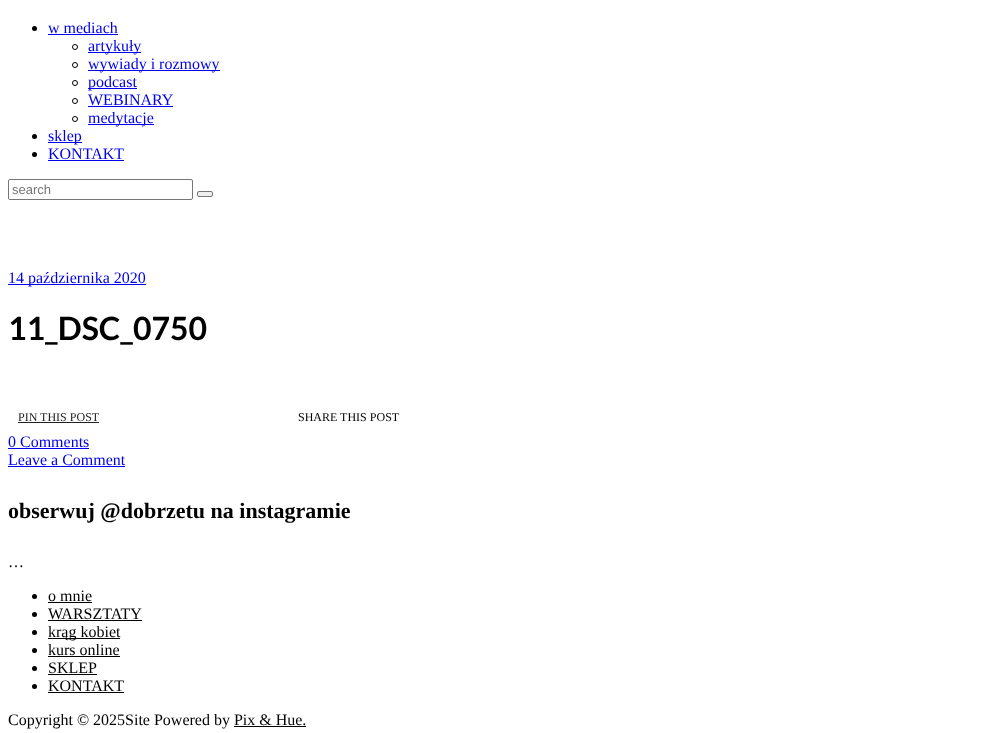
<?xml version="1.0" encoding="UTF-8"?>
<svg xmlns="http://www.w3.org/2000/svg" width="1003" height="733">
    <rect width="100%" height="100%" fill="#FFFFFF"/>
    <circle cx="34.5" cy="28.5" r="2.5" fill="#000000"/>
    <text x="48" y="33" font-family="Liberation Serif" font-size="16" fill="#0000EE">w mediach</text>
    <rect x="48" y="34" width="70" height="1" fill="#0000EE"/>
    <circle cx="75" cy="47" r="2.5" fill="none" stroke="#000000"/>
    <rect x="88" y="52" width="53" height="1" fill="#0000EE"/>
    <text x="88" y="51" font-family="Liberation Serif" font-size="16" fill="#0000EE">artykuły</text>
    <circle cx="75" cy="65" r="2.5" fill="none" stroke="#000000"/>
    <rect x="88" y="70" width="132" height="1" fill="#0000EE"/>
    <text x="88" y="69" font-family="Liberation Serif" font-size="16" fill="#0000EE">wywiady i rozmowy</text>
    <circle cx="75" cy="83" r="2.5" fill="none" stroke="#000000"/>
    <rect x="88" y="88" width="49" height="1" fill="#0000EE"/>
    <text x="88" y="87" font-family="Liberation Serif" font-size="16" fill="#0000EE">podcast</text>
    <circle cx="75" cy="101" r="2.5" fill="none" stroke="#000000"/>
    <text x="88" y="105" font-family="Liberation Serif" font-size="16" fill="#0000EE">WEBINARY</text>
    <rect x="88" y="106" width="85" height="1" fill="#0000EE"/>
    <circle cx="75" cy="119" r="2.5" fill="none" stroke="#000000"/>
    <rect x="88" y="124" width="66" height="1" fill="#0000EE"/>
    <text x="88" y="123" font-family="Liberation Serif" font-size="16" fill="#0000EE">medytacje</text>
    <circle cx="34.5" cy="136.5" r="2.5" fill="#000000"/>
    <rect x="48" y="142" width="34" height="1" fill="#0000EE"/>
    <text x="48" y="141" font-family="Liberation Serif" font-size="16" fill="#0000EE">sklep</text>
    <circle cx="34.5" cy="154.5" r="2.5" fill="#000000"/>
    <text x="48" y="159" font-family="Liberation Serif" font-size="16" fill="#0000EE">KONTAKT</text>
    <rect x="48" y="160" width="76" height="1" fill="#0000EE"/>
    <rect x="8.5" y="179.5" width="184" height="20" rx="1.5" fill="none" stroke="#767676"/>
    <text x="12" y="194" font-family="Liberation Sans" font-size="13" fill="#757575">search</text>
    <rect x="197.5" y="191.5" width="15" height="5" rx="1.5" fill="#EFEFEF" stroke="#767676"/>
    <rect x="8" y="284" width="138" height="1" fill="#0000EE"/>
    <text x="8" y="283" font-family="Liberation Serif" font-size="16" fill="#0000EE">14 października 2020</text>
    <text x="8" y="340" font-family="Lato" font-size="32" font-weight="700" fill="#000000">11_DSC_0750</text>
    <text x="18" y="421" font-family="Liberation Serif" font-size="12" fill="#222222">PIN THIS POST</text>
    <rect x="18" y="422" width="81" height="1" fill="#222222"/>
    <text x="298" y="421" font-family="Liberation Serif" font-size="12" fill="#000000">SHARE THIS POST</text>
    <text x="8" y="447" font-family="Liberation Serif" font-size="16" fill="#0000EE">0 Comments</text>
    <rect x="8" y="448" width="81" height="1" fill="#0000EE"/>
    <text x="8" y="465" font-family="Liberation Serif" font-size="16" fill="#0000EE">Leave a Comment</text>
    <rect x="8" y="466" width="117" height="1" fill="#0000EE"/>
    <text x="8" y="518" font-family="Liberation Serif" font-size="22" font-weight="700" fill="#000000">obserwuj @dobrzetu na instagramie</text>
    <text x="8" y="567" font-family="Liberation Serif" font-size="16" fill="#000000">…</text>
    <circle cx="34.5" cy="596.5" r="2.5" fill="#000000"/>
    <text x="48" y="601" font-family="Liberation Serif" font-size="16" fill="#000000">o mnie</text>
    <rect x="48" y="602" width="44" height="1" fill="#000000"/>
    <circle cx="34.5" cy="614.5" r="2.5" fill="#000000"/>
    <text x="48" y="619" font-family="Liberation Serif" font-size="16" fill="#000000">WARSZTATY</text>
    <rect x="48" y="620" width="94" height="1" fill="#000000"/>
    <circle cx="34.5" cy="632.5" r="2.5" fill="#000000"/>
    <rect x="48" y="638" width="72" height="1" fill="#000000"/>
    <text x="48" y="637" font-family="Liberation Serif" font-size="16" fill="#000000">krąg kobiet</text>
    <circle cx="34.5" cy="650.5" r="2.5" fill="#000000"/>
    <text x="48" y="655" font-family="Liberation Serif" font-size="16" fill="#000000">kurs online</text>
    <rect x="48" y="656" width="72" height="1" fill="#000000"/>
    <circle cx="34.5" cy="668.5" r="2.5" fill="#000000"/>
    <text x="48" y="673" font-family="Liberation Serif" font-size="16" fill="#000000">SKLEP</text>
    <rect x="48" y="674" width="49" height="1" fill="#000000"/>
    <circle cx="34.5" cy="686.5" r="2.5" fill="#000000"/>
    <text x="48" y="691" font-family="Liberation Serif" font-size="16" fill="#000000">KONTAKT</text>
    <rect x="48" y="692" width="76" height="1" fill="#000000"/>
    <text x="8" y="725" font-family="Liberation Serif" font-size="16" fill="#000000">Copyright © 2025Site Powered by Pix &amp; Hue.</text>
    <rect x="234" y="726" width="72" height="1" fill="#000000"/>
</svg>
